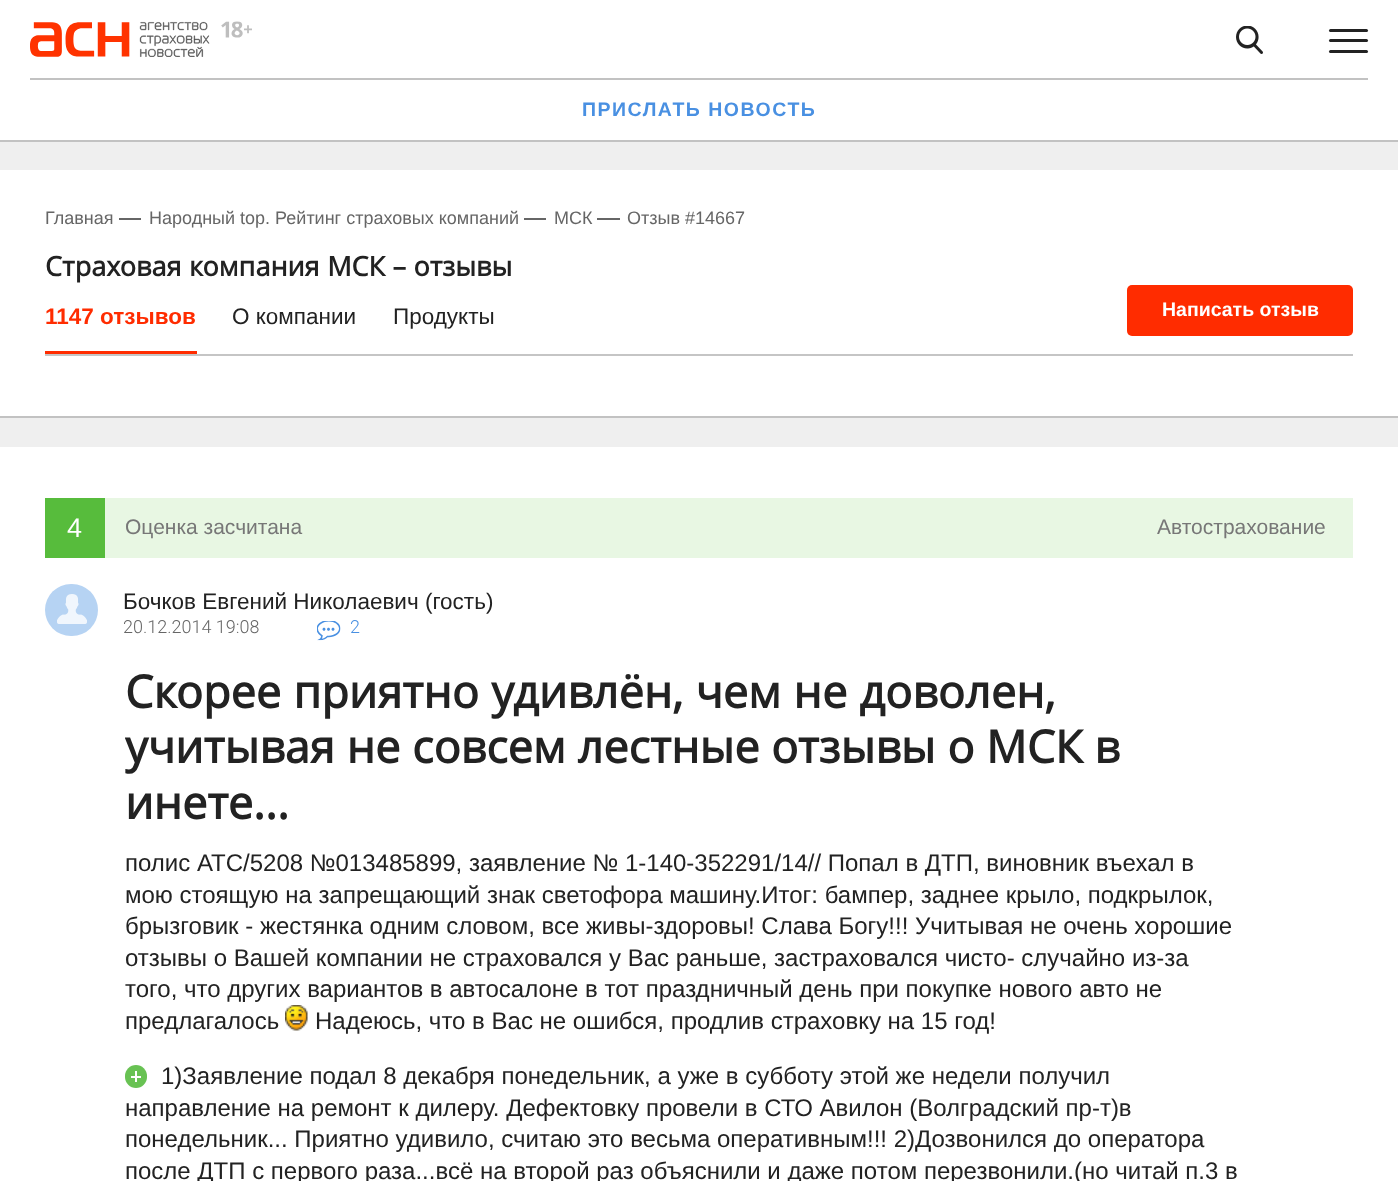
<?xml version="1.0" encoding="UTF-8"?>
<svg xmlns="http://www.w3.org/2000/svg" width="1398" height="1181">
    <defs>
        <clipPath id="clip1"><rect x="125" y="663" width="1117" height="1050"/></clipPath>
    </defs>
    <rect width="100%" height="100%" fill="#EFEFEF"/>
    <rect x="0" y="0" width="1398" height="140" fill="#FFFFFF"/>
    <image x="30" y="21" width="222" height="36" href="img_01.png"/>
    <image x="1236" y="26" width="27" height="28" href="img_02.png"/>
    <rect x="1329" y="29" width="39" height="3" rx="1.5" fill="#222222"/>
    <rect x="1329" y="39" width="39" height="3" rx="1.5" fill="#222222"/>
    <rect x="1329" y="50" width="39" height="3" rx="1.5" fill="#222222"/>
    <rect x="0" y="140" width="1398" height="2" fill="#C2C2C2"/>
    <rect x="30" y="78" width="1338" height="2" fill="#C2C2C2"/>
    <text x="582" y="116" font-family="Liberation Sans" font-size="19.5" font-weight="700" letter-spacing="1.5" fill="#4990E2">ПРИСЛАТЬ НОВОСТЬ</text>
    <rect x="0" y="170" width="1398" height="246" fill="#FFFFFF"/>
    <rect x="0" y="416" width="1398" height="2" fill="#C2C2C2"/>
    <text x="45" y="224" font-family="Liberation Sans" font-size="18" fill="#666666">Главная</text>
    <rect x="119" y="218" width="22" height="2" fill="#666666"/>
    <text x="149" y="224" font-family="Liberation Sans" font-size="18" fill="#666666">Народный top. Рейтинг страховых компаний</text>
    <rect x="524" y="218" width="22" height="2" fill="#666666"/>
    <text x="554" y="224" font-family="Liberation Sans" font-size="18" fill="#666666">МСК</text>
    <rect x="597" y="218" width="23" height="2" fill="#666666"/>
    <text x="627" y="224" font-family="Liberation Sans" font-size="18" fill="#666666">Отзыв #14667</text>
    <text x="45" y="276" word-spacing="0.5" font-family="Open Sans" font-size="27" font-weight="700" fill="#222222">Страховая компания МСК – отзывы</text>
    <rect x="45" y="354" width="1308" height="2" fill="#C5C5C5"/>
    <rect x="45" y="351" width="152" height="3" fill="#FF2C00"/>
    <text x="45" y="324" font-family="Liberation Sans" font-size="22.5" font-weight="700" fill="#FF2C00">1147 отзывов</text>
    <text x="232" y="324" font-family="Liberation Sans" font-size="22.5" fill="#222222">О компании</text>
    <text x="393" y="324" font-family="Liberation Sans" font-size="22.5" fill="#222222">Продукты</text>
    <rect x="1127" y="285" width="226" height="51" rx="5" fill="#FF2C00"/>
    <text x="1162" y="316" font-family="Liberation Sans" font-size="19.5" font-weight="700" fill="#FFFFFF">Написать отзыв</text>
    <rect x="0" y="447" width="1398" height="734" fill="#FFFFFF"/>
    <rect x="105" y="498" width="1248" height="60" fill="#E8F7E3"/>
    <rect x="45" y="498" width="60" height="60" fill="#57BC3C"/>
    <text x="67" y="537" font-family="Liberation Sans" font-size="27" fill="#FFFFFF">4</text>
    <text x="125" y="534" font-family="Liberation Sans" font-size="21" fill="#777777">Оценка засчитана</text>
    <text x="1157" y="534" font-family="Liberation Sans" font-size="21" fill="#777777">Автострахование</text>
    <rect x="45" y="584" width="53" height="52" rx="26" fill="#B6D3F3"/>
    <image x="57" y="594" width="30" height="30" href="img_03.png"/>
    <text x="123" y="609" font-family="Liberation Sans" font-size="22.5" fill="#222222">Бочков Евгений Николаевич (гость)</text>
    <text x="123" y="633" font-family="Roboto" font-size="18" font-weight="300" fill="#666666">20.12.2014 19:08</text>
    <image x="317" y="621" width="24" height="20" href="img_04.png"/>
    <text x="350" y="633" font-family="Roboto" font-size="18" font-weight="300" fill="#4990E2">2</text>
    <text x="125" y="708" word-spacing="0.5" font-family="Open Sans" font-size="45" font-weight="700" fill="#222222">Скорее приятно удивлён, чем не доволен,</text>
    <g clip-path="url(#clip1)">
        <text x="125" y="763" font-family="Open Sans" font-size="45" font-weight="700" fill="#222222">учитывая не совсем лестные отзывы о МСК в</text>
    </g>
    <text x="125" y="819" font-family="Open Sans" font-size="45" font-weight="700" fill="#222222">инете...</text>
    <text font-family="Liberation Sans" font-size="24" fill="#222222">
        <tspan x="125" y="871">полис АТС/5208 №013485899, заявление № 1-140-352291/14// Попал в ДТП, виновник въехал в</tspan>
        <tspan x="125" y="903">мою стоящую на запрещающий знак светофора машину.Итог: бампер, заднее крыло, подкрылок,</tspan>
        <tspan x="125" y="934">брызговик - жестянка одним словом, все живы-здоровы! Слава Богу!!! Учитывая не очень хорошие</tspan>
        <tspan x="125" y="966">отзывы о Вашей компании не страховался у Вас раньше, застраховался чисто- случайно из-за</tspan>
        <tspan x="125" y="997">того, что других вариантов в автосалоне в тот праздничный день при покупке нового авто не</tspan>
        <tspan x="125" y="1029">предлагалось</tspan>
    </text>
    <image x="285" y="1005" width="23" height="26" href="img_05.png"/>
    <text x="315" y="1029" font-family="Liberation Sans" font-size="24" fill="#222222">Надеюсь, что в Вас не ошибся, продлив страховку на 15 год!</text>
    <rect x="125" y="1065" width="22" height="23" rx="11" fill="#68C253"/>
    <rect x="135" y="1071" width="2" height="11" fill="#FFFFFF"/>
    <rect x="131" y="1076" width="10" height="2" fill="#FFFFFF"/>
    <text x="161" y="1084" font-family="Liberation Sans" font-size="24" fill="#222222">1)Заявление подал 8 декабря понедельник, а уже в субботу этой же недели получил</text>
    <text font-family="Liberation Sans" font-size="24" fill="#222222">
        <tspan x="125" y="1116">направление на ремонт к дилеру. Дефектовку провели в СТО Авилон (Волградский пр-т)в</tspan>
        <tspan x="125" y="1147">понедельник... Приятно удивило, считаю это весьма оперативным!!! 2)Дозвонился до оператора</tspan>
        <tspan x="125" y="1179">после ДТП с первого раза...всё на второй раз объяснили и даже потом перезвонили.(но читай п.3 в</tspan>
    </text>
</svg>
